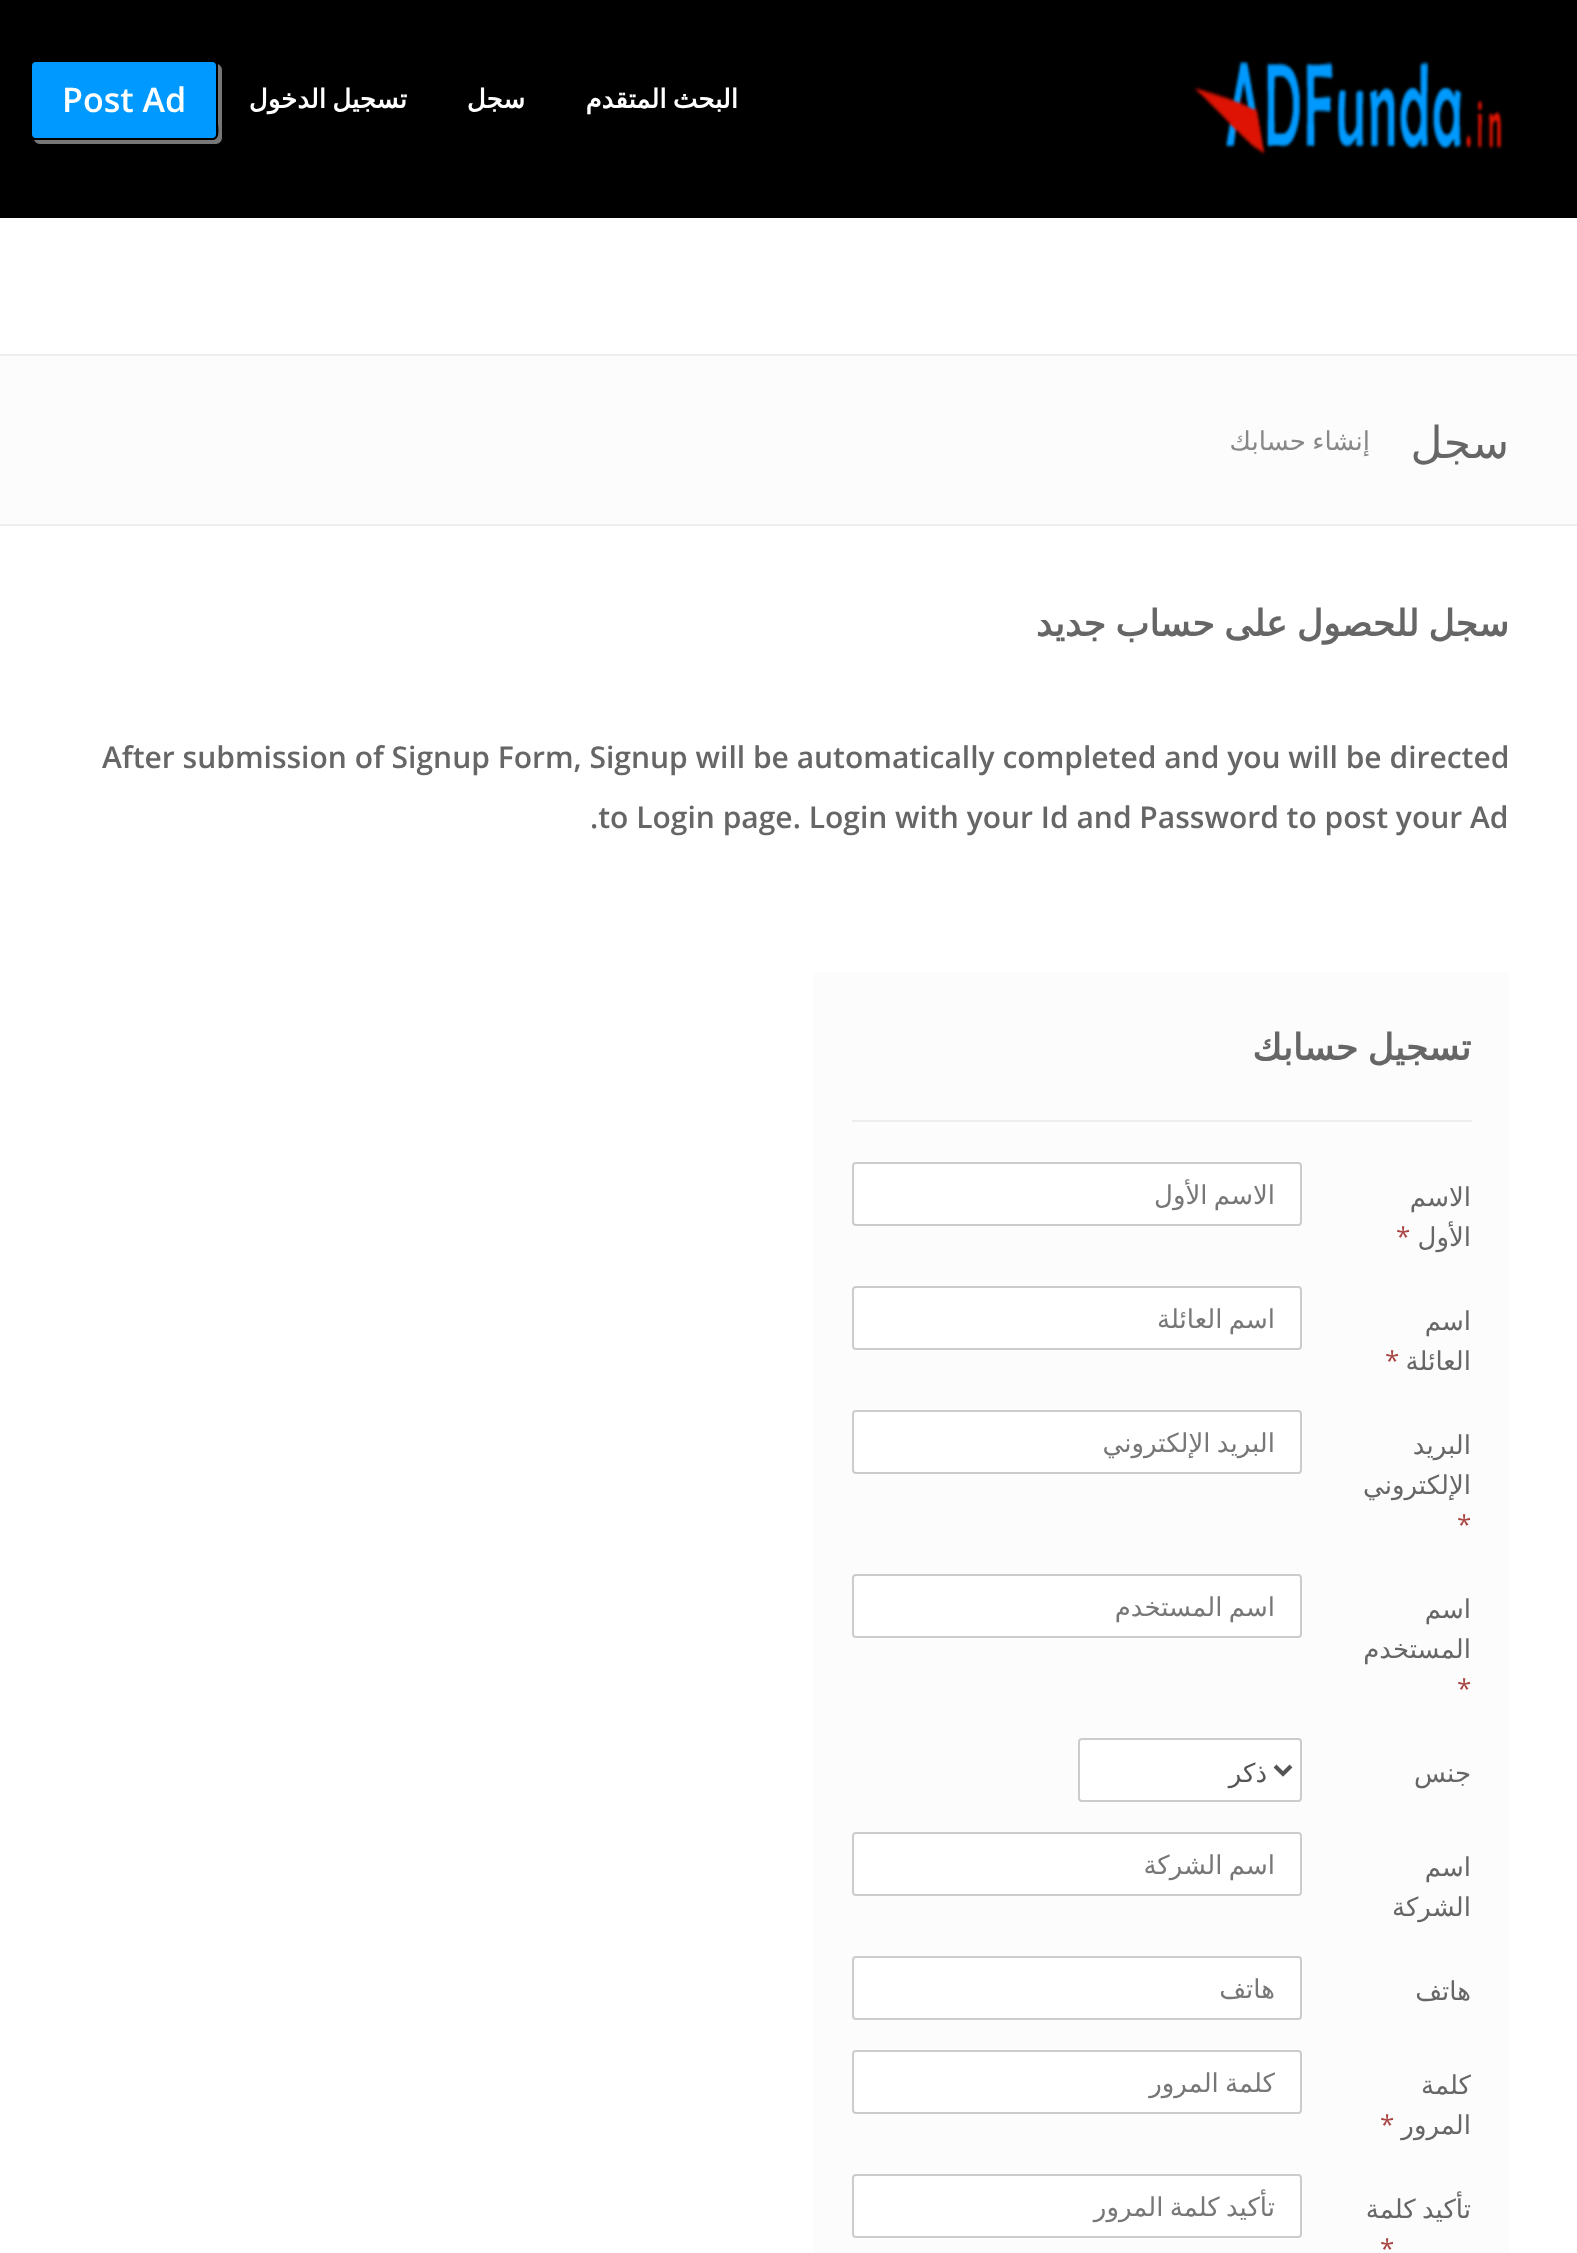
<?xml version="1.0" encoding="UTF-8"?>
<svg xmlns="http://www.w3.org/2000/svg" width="1577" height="2253">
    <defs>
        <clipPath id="clip1"><rect x="878" y="2064" width="398" height="36"/></clipPath>
        <clipPath id="clip2"><rect x="878" y="2188" width="398" height="36"/></clipPath>
    </defs>
    <rect width="100%" height="100%" fill="#FFFFFF"/>
    <rect x="0" y="0" width="1577" height="218" fill="#000000"/>
    <image x="1193" y="60" width="310" height="96" href="img_01.png"/>
    <text x="738" y="108" word-spacing="-2" font-family="DejaVu Sans" font-size="26" font-weight="700" direction="rtl" fill="#FFFFFF">البحث المتقدم</text>
    <text x="525" y="108" font-family="DejaVu Sans" font-size="26" font-weight="700" direction="rtl" fill="#FFFFFF">سجل</text>
    <text x="407" y="108" word-spacing="-2" font-family="DejaVu Sans" font-size="26" font-weight="700" direction="rtl" fill="#FFFFFF">تسجيل الدخول</text>
    <path d="M 34 140 C 35 142 37 144 40 144 H 216 C 219 144 222 141 222 138 V 70 C 222 67 220 65 218 64 V 123 C 218 127 221 140 212 140 Z" fill="#777777"/>
    <rect x="31" y="61" width="186" height="78" rx="5" fill="#0099FF" stroke="#000000" stroke-width="2"/>
    <text x="62" y="112" font-family="Open Sans" font-size="34" font-weight="600" fill="#FFFFFF">Post Ad</text>
    <rect x="0" y="356" width="1577" height="168" fill="#FCFCFC"/>
    <rect x="0" y="354" width="1577" height="2" fill="#EEEEEE"/>
    <rect x="0" y="524" width="1577" height="2" fill="#EEEEEE"/>
    <text x="1509" y="458" font-family="DejaVu Sans" font-size="44" direction="rtl" fill="#666666">سجل</text>
    <text x="1370" y="450" word-spacing="-2" font-family="DejaVu Sans" font-size="26" direction="rtl" fill="#888888">إنشاء حسابك</text>
    <text x="1509" y="636" word-spacing="-2" font-family="DejaVu Sans" font-size="36" font-weight="700" direction="rtl" fill="#666666">سجل للحصول على حساب جديد</text>
    <text x="102" y="768" font-family="Open Sans" font-size="30" font-weight="600" fill="#666666">After submission of Signup Form, Signup will be automatically completed and you will be directed</text>
    <text x="590" y="828" font-family="Open Sans" font-size="30" font-weight="600" fill="#666666">.to Login page. Login with your Id and Password to post your Ad</text>
    <rect x="814" y="972" width="696" height="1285" rx="4" fill="#FCFCFC"/>
    <text x="1471" y="1060" word-spacing="-2" font-family="DejaVu Sans" font-size="36" font-weight="700" direction="rtl" fill="#666666">تسجيل حسابك</text>
    <rect x="852" y="1120" width="620" height="2" fill="#EEEEEE"/>
    <text font-family="DejaVu Sans" font-size="26" direction="rtl" fill="#666666">
        <tspan x="1471" y="1206">الاسم</tspan>
        <tspan x="1471" y="1246">الأول</tspan>
    </text>
    <text x="1396" y="1246" font-family="Open Sans" font-size="26" fill="#A94442">*</text>
    <rect x="853" y="1163" width="448" height="62" rx="3" fill="#FFFFFF" stroke="#CCCCCC" stroke-width="2"/>
    <text x="1275" y="1204" word-spacing="-2" font-family="DejaVu Sans" font-size="26" direction="rtl" fill="#777777">الاسم الأول</text>
    <text font-family="DejaVu Sans" font-size="26" direction="rtl" fill="#666666">
        <tspan x="1471" y="1330">اسم</tspan>
        <tspan x="1471" y="1370">العائلة</tspan>
    </text>
    <text x="1385" y="1370" font-family="Open Sans" font-size="26" fill="#A94442">*</text>
    <rect x="853" y="1287" width="448" height="62" rx="3" fill="#FFFFFF" stroke="#CCCCCC" stroke-width="2"/>
    <text x="1275" y="1328" word-spacing="-2" font-family="DejaVu Sans" font-size="26" direction="rtl" fill="#777777">اسم العائلة</text>
    <text font-family="DejaVu Sans" font-size="26" direction="rtl" fill="#666666">
        <tspan x="1471" y="1454">البريد</tspan>
        <tspan x="1471" y="1494">الإلكتروني</tspan>
    </text>
    <text x="1457" y="1534" font-family="Open Sans" font-size="26" fill="#A94442">*</text>
    <rect x="853" y="1411" width="448" height="62" rx="3" fill="#FFFFFF" stroke="#CCCCCC" stroke-width="2"/>
    <text x="1275" y="1452" word-spacing="-2" font-family="DejaVu Sans" font-size="26" direction="rtl" fill="#777777">البريد الإلكتروني</text>
    <text font-family="DejaVu Sans" font-size="26" direction="rtl" fill="#666666">
        <tspan x="1471" y="1618">اسم</tspan>
        <tspan x="1471" y="1658">المستخدم</tspan>
    </text>
    <text x="1457" y="1698" font-family="Open Sans" font-size="26" fill="#A94442">*</text>
    <rect x="853" y="1575" width="448" height="62" rx="3" fill="#FFFFFF" stroke="#CCCCCC" stroke-width="2"/>
    <text x="1275" y="1616" word-spacing="-2" font-family="DejaVu Sans" font-size="26" direction="rtl" fill="#777777">اسم المستخدم</text>
    <text x="1471" y="1782" font-family="DejaVu Sans" font-size="26" direction="rtl" fill="#666666">جنس</text>
    <rect x="1079" y="1739" width="222" height="62" rx="3" fill="#FFFFFF" stroke="#CCCCCC" stroke-width="2"/>
    <path d="M 1275 1766 L 1283 1774 L 1291 1766" fill="none" stroke="#555555" stroke-width="4"/>
    <text x="1267" y="1782" font-family="DejaVu Sans" font-size="26" direction="rtl" fill="#555555">ذكر</text>
    <text font-family="DejaVu Sans" font-size="26" direction="rtl" fill="#666666">
        <tspan x="1471" y="1876">اسم</tspan>
        <tspan x="1471" y="1916">الشركة</tspan>
    </text>
    <rect x="853" y="1833" width="448" height="62" rx="3" fill="#FFFFFF" stroke="#CCCCCC" stroke-width="2"/>
    <text x="1275" y="1874" word-spacing="-2" font-family="DejaVu Sans" font-size="26" direction="rtl" fill="#777777">اسم الشركة</text>
    <text x="1471" y="2000" font-family="DejaVu Sans" font-size="26" direction="rtl" fill="#666666">هاتف</text>
    <rect x="853" y="1957" width="448" height="62" rx="3" fill="#FFFFFF" stroke="#CCCCCC" stroke-width="2"/>
    <text x="1275" y="1998" font-family="DejaVu Sans" font-size="26" direction="rtl" fill="#777777">هاتف</text>
    <text font-family="DejaVu Sans" font-size="26" direction="rtl" fill="#666666">
        <tspan x="1471" y="2094">كلمة</tspan>
        <tspan x="1471" y="2134">المرور</tspan>
    </text>
    <text x="1380" y="2134" font-family="Open Sans" font-size="26" fill="#A94442">*</text>
    <rect x="853" y="2051" width="448" height="62" rx="3" fill="#FFFFFF" stroke="#CCCCCC" stroke-width="2"/>
    <g clip-path="url(#clip1)">
        <text x="1275" y="2092" word-spacing="-2" font-family="DejaVu Sans" font-size="26" direction="rtl" fill="#777777">كلمة المرور</text>
    </g>
    <text x="1471" y="2218" word-spacing="-2" font-family="DejaVu Sans" font-size="26" direction="rtl" fill="#666666">تأكيد كلمة</text>
    <text x="1380" y="2258" font-family="Open Sans" font-size="26" fill="#A94442">*</text>
    <rect x="853" y="2175" width="448" height="62" rx="3" fill="#FFFFFF" stroke="#CCCCCC" stroke-width="2"/>
    <g clip-path="url(#clip2)">
        <text x="1275" y="2216" word-spacing="-2" font-family="DejaVu Sans" font-size="26" direction="rtl" fill="#777777">تأكيد كلمة المرور</text>
    </g>
</svg>
